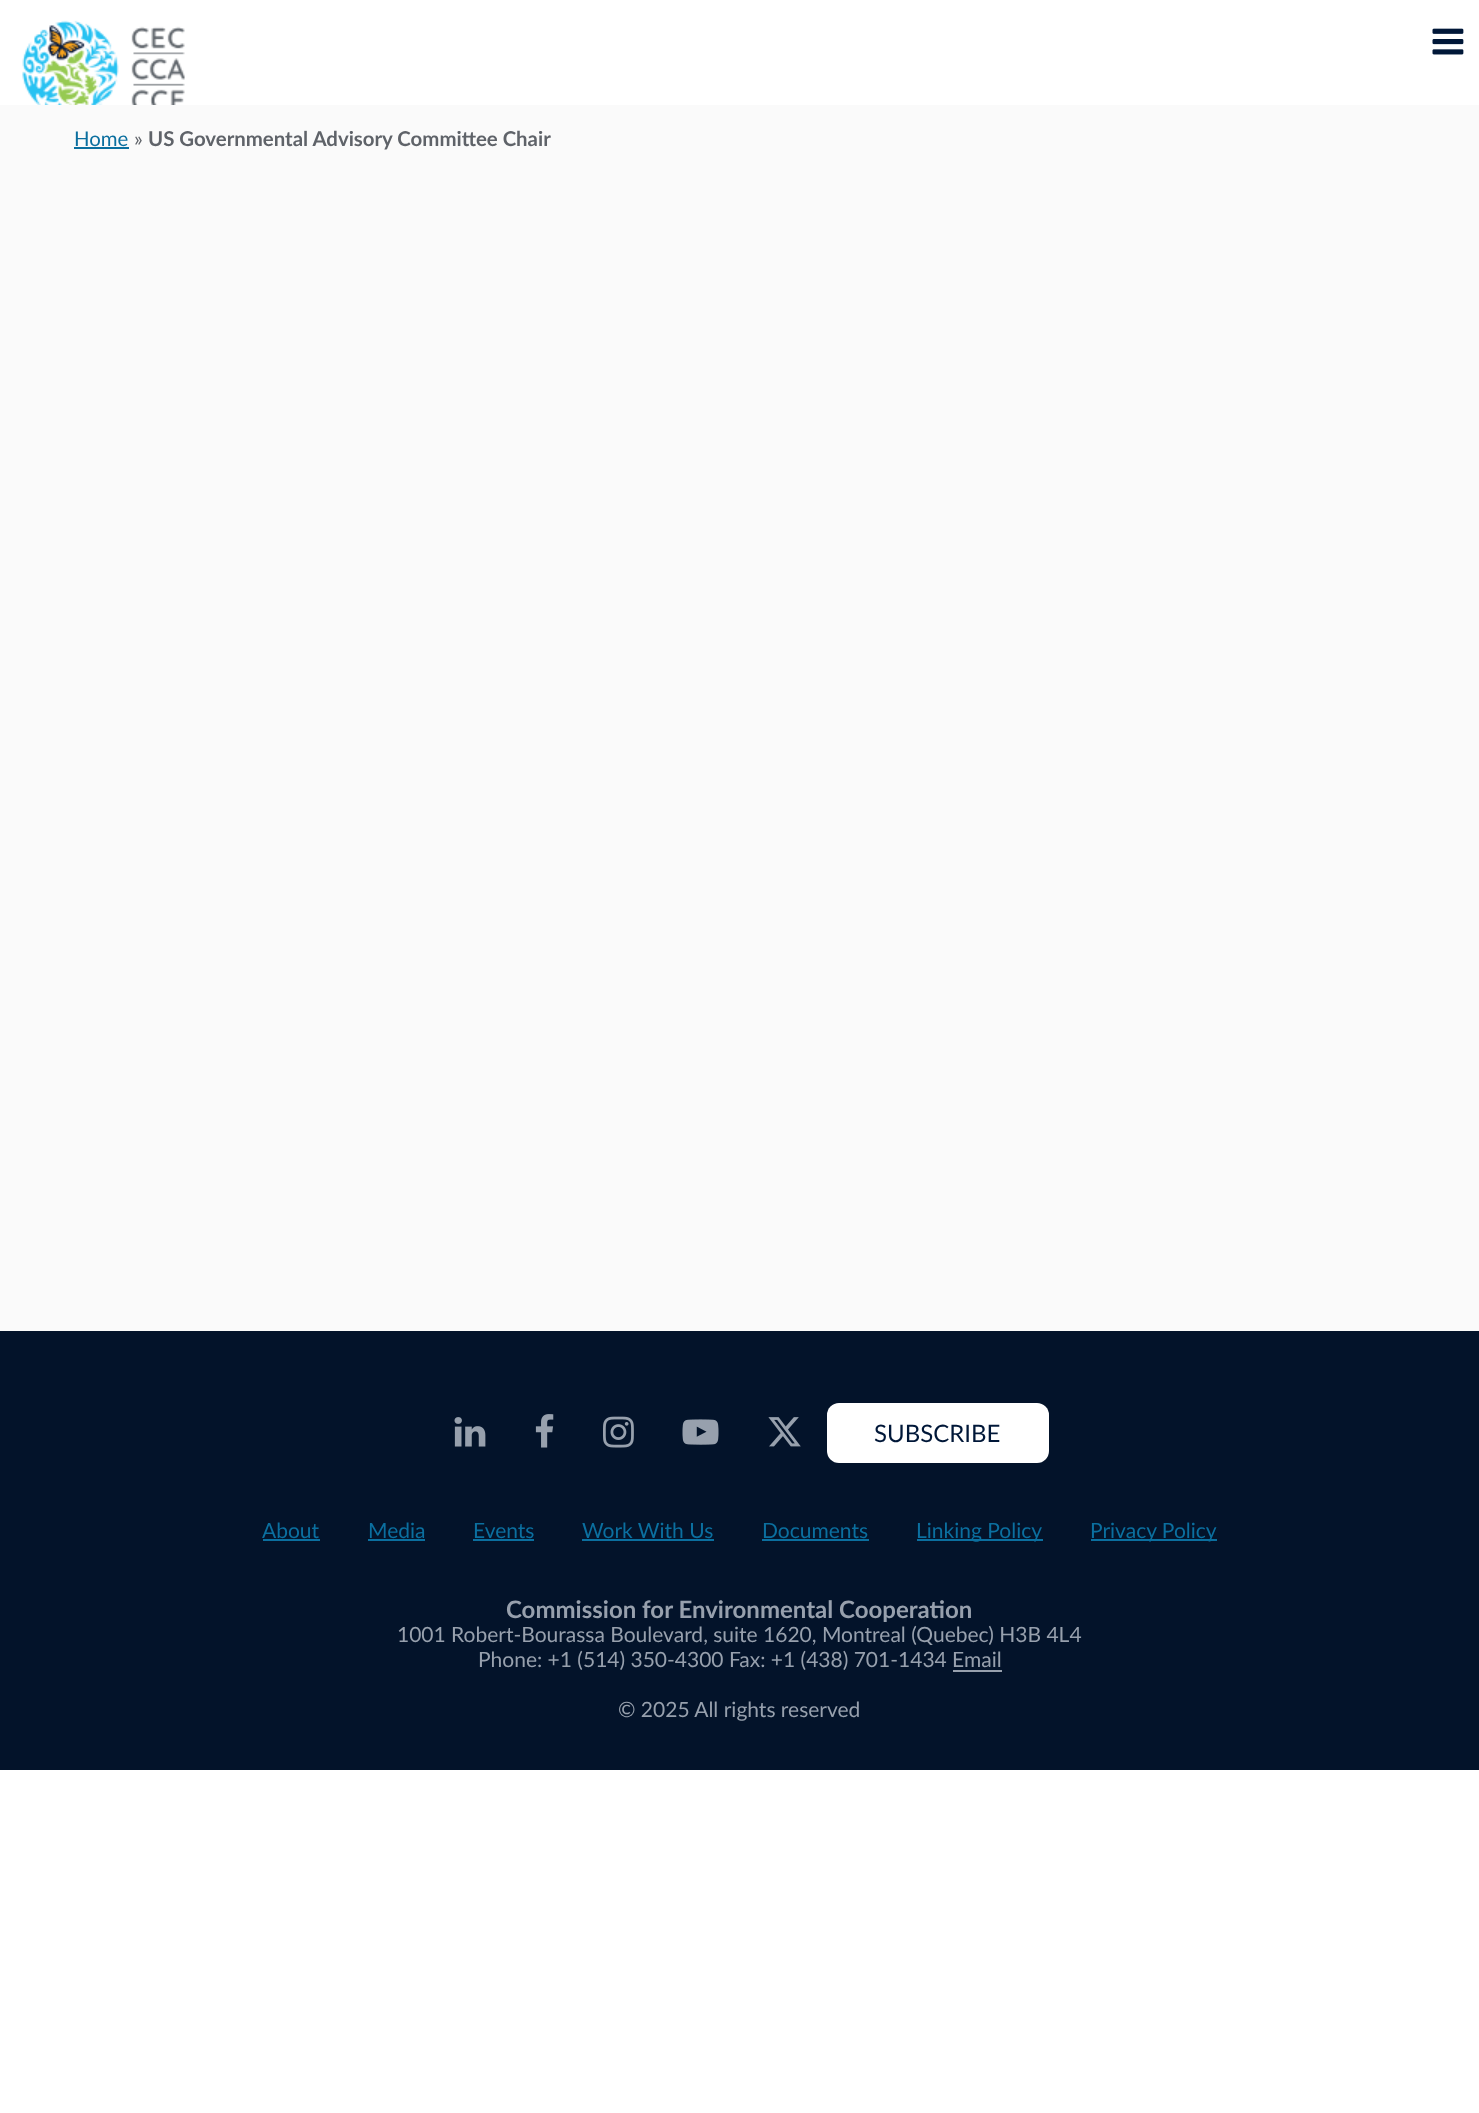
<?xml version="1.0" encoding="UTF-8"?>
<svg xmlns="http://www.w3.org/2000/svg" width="1479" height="2113">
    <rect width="100%" height="100%" fill="#FFFFFF"/>
    <image x="22" y="20" width="163" height="85" href="img_01.png"/>
    <image x="1432" y="28" width="32" height="27" href="img_02.png"/>
    <rect x="0" y="105" width="1479" height="1226" fill="#FAFAFA"/>
    <text x="74" y="146" font-family="Lato" font-size="20.4" fill="#0B6F9F">Home</text>
    <rect x="74" y="147" width="55" height="2" fill="#0B6F9F"/>
    <text x="134" y="146" font-family="Lato" font-size="20.4" fill="#5F6369">»</text>
    <text x="148" y="146" font-family="Lato" font-size="20.4" font-weight="700" fill="#5F6369">US Governmental Advisory Committee Chair</text>
    <rect x="0" y="1331" width="1479" height="439" fill="#03132A"/>
    <image x="454" y="1417" width="32" height="30" href="img_03.png"/>
    <image x="535" y="1414" width="19" height="34" href="img_04.png"/>
    <image x="603" y="1416" width="31" height="32" href="img_05.png"/>
    <image x="682" y="1419" width="37" height="26" href="img_06.png"/>
    <image x="768" y="1417" width="33" height="30" href="img_07.png"/>
    <rect x="827" y="1403" width="222" height="60" rx="12" fill="#FFFFFF"/>
    <text x="874" y="1442" font-family="Lato" font-size="24" fill="#001738">SUBSCRIBE</text>
    <text x="262" y="1538" font-family="Lato" font-size="21" fill="#0B6F9F">About</text>
    <rect x="263" y="1539" width="57" height="2" fill="#0B6F9F"/>
    <text x="368" y="1538" font-family="Lato" font-size="21" fill="#0B6F9F">Media</text>
    <rect x="368" y="1539" width="57" height="2" fill="#0B6F9F"/>
    <text x="473" y="1538" font-family="Lato" font-size="21" fill="#0B6F9F">Events</text>
    <rect x="473" y="1539" width="61" height="2" fill="#0B6F9F"/>
    <text x="582" y="1538" font-family="Lato" font-size="21" fill="#0B6F9F">Work With Us</text>
    <rect x="582" y="1539" width="132" height="2" fill="#0B6F9F"/>
    <text x="762" y="1538" font-family="Lato" font-size="21" fill="#0B6F9F">Documents</text>
    <rect x="762" y="1539" width="107" height="2" fill="#0B6F9F"/>
    <rect x="917" y="1539" width="126" height="2" fill="#0B6F9F"/>
    <text x="916" y="1538" font-family="Lato" font-size="21" fill="#0B6F9F">Linking Policy</text>
    <rect x="1091" y="1539" width="126" height="2" fill="#0B6F9F"/>
    <text x="1090" y="1538" font-family="Lato" font-size="21" fill="#0B6F9F">Privacy Policy</text>
    <text x="506" y="1618" font-family="Lato" font-size="24" font-weight="700" fill="#97A0AD">Commission for Environmental Cooperation</text>
    <text x="397" y="1642" font-family="Lato" font-size="21" fill="#97A0AD">1001 Robert-Bourassa Boulevard, suite 1620, Montreal (Quebec) H3B 4L4</text>
    <text x="478" y="1667" font-family="Lato" font-size="21" fill="#97A0AD">Phone: +1 (514) 350-4300 Fax: +1 (438) 701-1434 Email</text>
    <rect x="953" y="1670" width="49" height="2" fill="#97A0AD"/>
    <text x="618" y="1717" font-family="Lato" font-size="21" fill="#97A0AD">© 2025 All rights reserved</text>
</svg>
